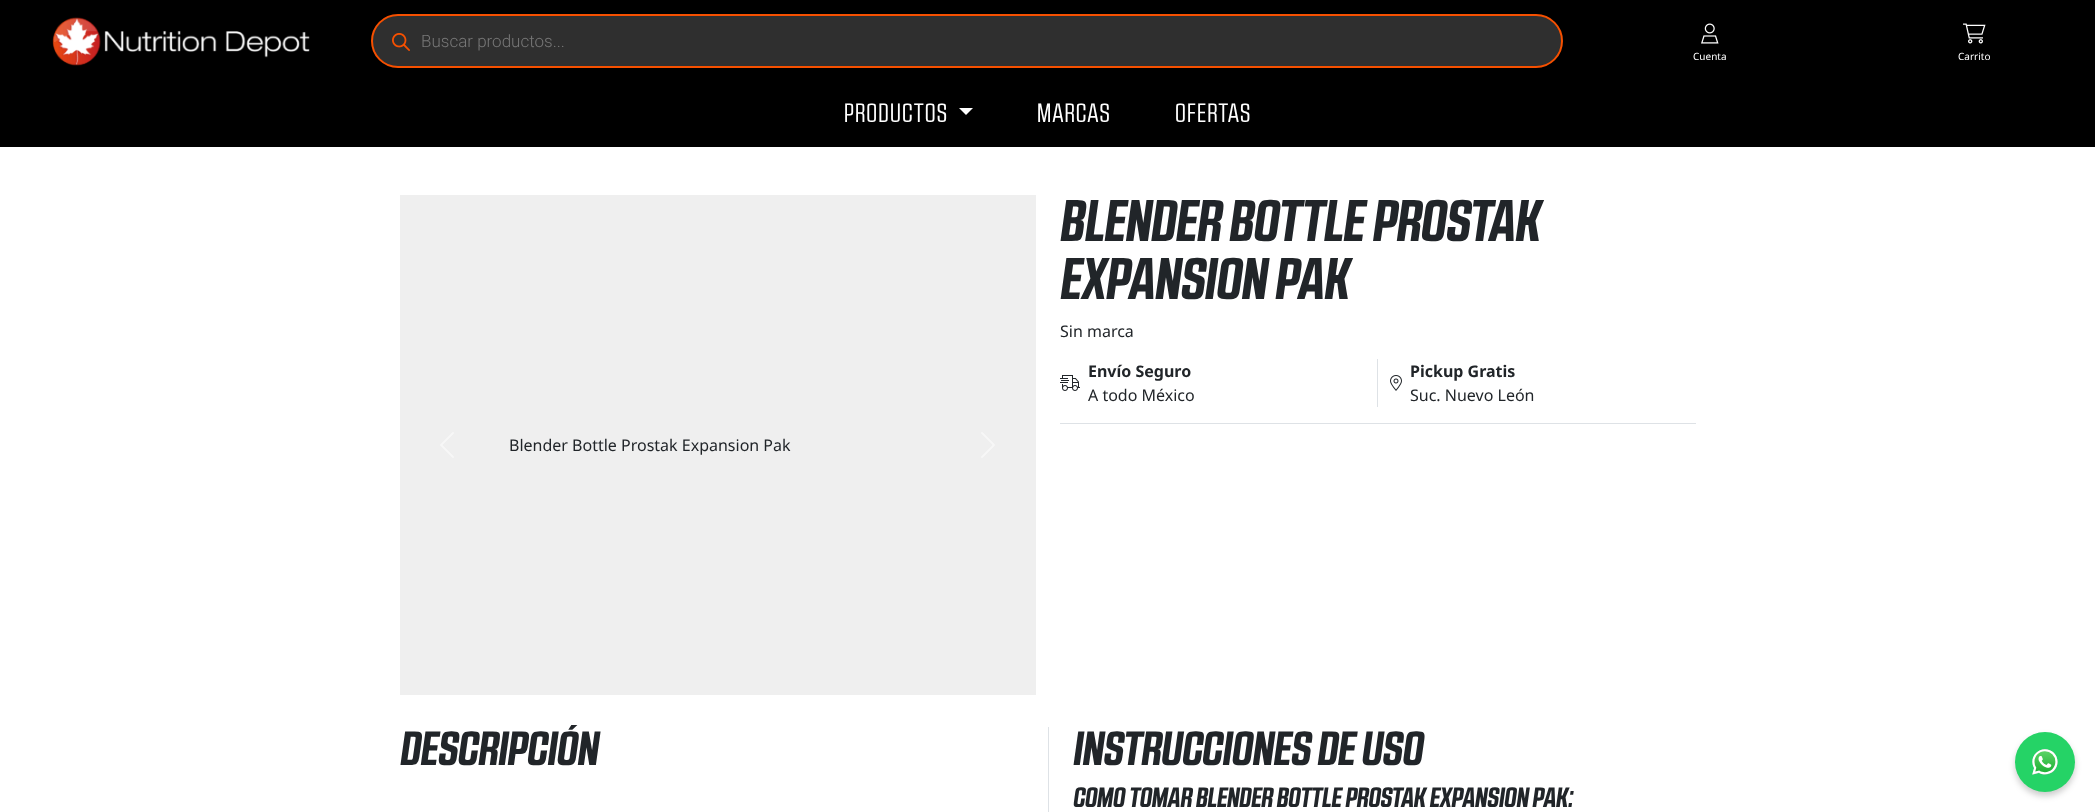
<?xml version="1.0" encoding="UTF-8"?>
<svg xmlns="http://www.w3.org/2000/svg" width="2095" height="812">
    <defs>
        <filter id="blur1" x="-50%" y="-200%" width="200%" height="500%"><feGaussianBlur stdDeviation="3"/></filter>
    </defs>
    <rect width="100%" height="100%" fill="#FFFFFF"/>
    <rect x="0" y="0" width="2095" height="147" fill="#000000"/>
    <image x="52" y="17" width="258" height="49" href="img_01.png"/>
    <rect x="372" y="15" width="1190" height="52" rx="26" fill="#2F2F2F" stroke="#F65000" stroke-width="2"/>
    <image x="392" y="33" width="18" height="18" href="img_02.png"/>
    <text x="421" y="47" font-family="Roboto" font-size="17" font-weight="300" fill="#777777">Buscar productos...</text>
    <image x="1701" y="23" width="18" height="21" href="img_03.png"/>
    <text x="1693" y="60" font-family="Noto Sans" font-size="10" fill="#FFFFFF">Cuenta</text>
    <image x="1963" y="23" width="23" height="21" href="img_04.png"/>
    <text x="1958" y="60" font-family="Noto Sans" font-size="10" fill="#FFFFFF">Carrito</text>
    <text x="844" y="122" font-family="'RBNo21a'" font-size="26.5" letter-spacing="1.25" fill="#FFFFFF">PRODUCTOS</text>
    <path d="M 959 108 H 973 L 966 115 Z" fill="#FFFFFF"/>
    <text x="1037" y="122" font-family="'RBNo21a'" font-size="26.5" letter-spacing="1.25" fill="#FFFFFF">MARCAS</text>
    <text x="1175" y="122" font-family="'RBNo21a'" font-size="26.5" letter-spacing="1.25" fill="#FFFFFF">OFERTAS</text>
    <text font-family="'RBNo21a'" font-size="58.5" font-weight="700" fill="#212529">
        <tspan x="1060" y="241">BLENDER BOTTLE PROSTAK</tspan>
        <tspan x="1060" y="299">EXPANSION PAK</tspan>
    </text>
    <text x="1060" y="337" font-family="Noto Sans" font-size="16" fill="#212529">Sin marca</text>
    <rect x="1377" y="359" width="1" height="48" fill="#DEE2E6"/>
    <image x="1060" y="375" width="20" height="16" href="img_05.png"/>
    <text x="1088" y="377" font-family="Noto Sans" font-size="16" font-weight="700" fill="#212529">Envío Seguro</text>
    <text x="1088" y="401" font-family="Noto Sans" font-size="16" fill="#212529">A todo México</text>
    <image x="1390" y="375" width="12" height="16" href="img_06.png"/>
    <text x="1410" y="377" font-family="Noto Sans" font-size="16" font-weight="700" fill="#212529">Pickup Gratis</text>
    <text x="1410" y="401" font-family="Noto Sans" font-size="16" fill="#212529">Suc. Nuevo León</text>
    <rect x="1060" y="423" width="636" height="1" fill="#DEE2E6"/>
    <rect x="400" y="195" width="636" height="500" fill="#EFEFEF"/>
    <image x="440" y="432" width="14" height="26" href="img_07.png"/>
    <text x="509" y="451" font-family="Noto Sans" font-size="16" fill="#212529">Blender Bottle Prostak Expansion Pak</text>
    <image x="981" y="432" width="14" height="26" href="img_08.png"/>
    <text x="400" y="765" font-family="'RBNo21a'" font-size="48" font-weight="700" fill="#212529">DESCRIPCIÓN</text>
    <rect x="1048" y="727" width="1" height="85" fill="#DEE2E6"/>
    <text x="1073" y="765" font-family="'RBNo21a'" font-size="48" font-weight="700" fill="#212529">INSTRUCCIONES DE USO</text>
    <text x="1073" y="807" font-family="'RBNo21a'" font-size="28" font-weight="700" fill="#212529">COMO TOMAR BLENDER BOTTLE PROSTAK EXPANSION PAK:</text>
    <rect x="2015" y="736" width="60" height="60" rx="30" fill="#000000" fill-opacity="0.2" filter="url(#blur1)"/>
    <circle cx="2045" cy="762" r="30" fill="#25D366"/>
    <image x="2032" y="749" width="26" height="26" href="img_09.png"/>
</svg>
